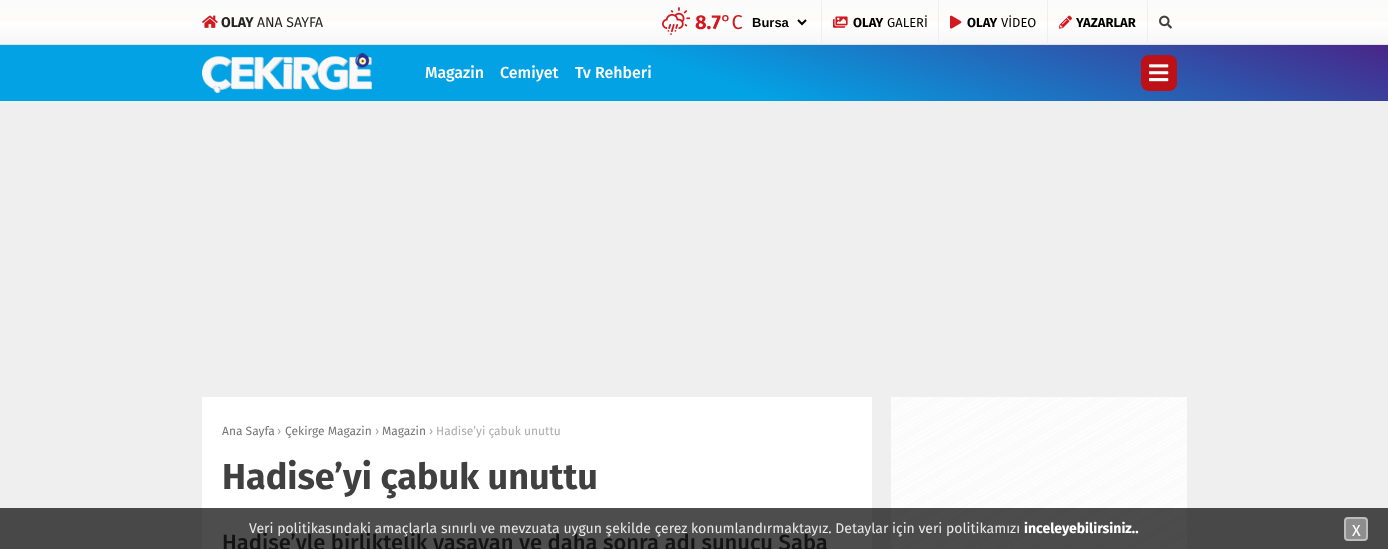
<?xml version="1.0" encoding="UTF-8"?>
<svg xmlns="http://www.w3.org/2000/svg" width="1388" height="549">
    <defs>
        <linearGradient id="g1" gradientUnits="userSpaceOnUse" x1="694" y1="44" x2="694" y2="0"><stop offset="0" stop-color="#F7F6F7"/><stop offset="0.5" stop-color="#FFFFFF"/><stop offset="0.5" stop-color="#FDFCFB"/><stop offset="1" stop-color="#FBFBFB"/></linearGradient>
        <linearGradient id="g2" gradientUnits="userSpaceOnUse" x1="612" y1="312" x2="776" y2="-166"><stop offset="0.5" stop-color="#03A2E5"/><stop offset="1" stop-color="#492588"/></linearGradient>
        <linearGradient id="g3" gradientUnits="userSpaceOnUse" x1="1118" y1="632" x2="958" y2="355"><stop offset="0" stop-color="#FBFBFB"/><stop offset="0.01" stop-color="#FBFBFB"/><stop offset="0.01" stop-color="#FAFAFA"/><stop offset="0.01" stop-color="#FFFFFF"/><stop offset="0.01" stop-color="#FBFBFB"/><stop offset="0.02" stop-color="#FBFBFB"/><stop offset="0.02" stop-color="#FAFAFA"/><stop offset="0.03" stop-color="#FFFFFF"/><stop offset="0.03" stop-color="#FBFBFB"/><stop offset="0.03" stop-color="#FAFAFA"/><stop offset="0.04" stop-color="#FFFFFF"/><stop offset="0.04" stop-color="#FBFBFB"/><stop offset="0.04" stop-color="#FAFAFA"/><stop offset="0.05" stop-color="#FFFFFF"/><stop offset="0.05" stop-color="#FBFBFB"/><stop offset="0.06" stop-color="#FBFBFB"/><stop offset="0.06" stop-color="#FAFAFA"/><stop offset="0.06" stop-color="#FFFFFF"/><stop offset="0.06" stop-color="#FBFBFB"/><stop offset="0.07" stop-color="#FBFBFB"/><stop offset="0.07" stop-color="#FAFAFA"/><stop offset="0.07" stop-color="#FFFFFF"/><stop offset="0.07" stop-color="#FBFBFB"/><stop offset="0.08" stop-color="#FBFBFB"/><stop offset="0.08" stop-color="#FAFAFA"/><stop offset="0.09" stop-color="#FFFFFF"/><stop offset="0.09" stop-color="#FBFBFB"/><stop offset="0.09" stop-color="#FAFAFA"/><stop offset="0.1" stop-color="#FFFFFF"/><stop offset="0.1" stop-color="#FBFBFB"/><stop offset="0.11" stop-color="#FBFBFB"/><stop offset="0.11" stop-color="#FAFAFA"/><stop offset="0.11" stop-color="#FFFFFF"/><stop offset="0.11" stop-color="#FBFBFB"/><stop offset="0.12" stop-color="#FBFBFB"/><stop offset="0.12" stop-color="#FAFAFA"/><stop offset="0.12" stop-color="#FFFFFF"/><stop offset="0.12" stop-color="#FBFBFB"/><stop offset="0.13" stop-color="#FBFBFB"/><stop offset="0.13" stop-color="#FAFAFA"/><stop offset="0.14" stop-color="#FFFFFF"/><stop offset="0.14" stop-color="#FBFBFB"/><stop offset="0.14" stop-color="#FAFAFA"/><stop offset="0.15" stop-color="#FFFFFF"/><stop offset="0.15" stop-color="#FBFBFB"/><stop offset="0.16" stop-color="#FBFBFB"/><stop offset="0.16" stop-color="#FAFAFA"/><stop offset="0.16" stop-color="#FFFFFF"/><stop offset="0.16" stop-color="#FBFBFB"/><stop offset="0.17" stop-color="#FBFBFB"/><stop offset="0.17" stop-color="#FAFAFA"/><stop offset="0.18" stop-color="#FFFFFF"/><stop offset="0.18" stop-color="#FBFBFB"/><stop offset="0.18" stop-color="#FAFAFA"/><stop offset="0.19" stop-color="#FFFFFF"/><stop offset="0.19" stop-color="#FBFBFB"/><stop offset="0.19" stop-color="#FAFAFA"/><stop offset="0.2" stop-color="#FFFFFF"/><stop offset="0.2" stop-color="#FBFBFB"/><stop offset="0.21" stop-color="#FBFBFB"/><stop offset="0.21" stop-color="#FAFAFA"/><stop offset="0.21" stop-color="#FFFFFF"/><stop offset="0.21" stop-color="#FBFBFB"/><stop offset="0.22" stop-color="#FBFBFB"/><stop offset="0.22" stop-color="#FAFAFA"/><stop offset="0.23" stop-color="#FFFFFF"/><stop offset="0.23" stop-color="#FBFBFB"/><stop offset="0.23" stop-color="#FAFAFA"/><stop offset="0.24" stop-color="#FFFFFF"/><stop offset="0.24" stop-color="#FBFBFB"/><stop offset="0.24" stop-color="#FAFAFA"/><stop offset="0.25" stop-color="#FFFFFF"/><stop offset="0.25" stop-color="#FBFBFB"/><stop offset="0.26" stop-color="#FBFBFB"/><stop offset="0.26" stop-color="#FAFAFA"/><stop offset="0.26" stop-color="#FFFFFF"/><stop offset="0.26" stop-color="#FBFBFB"/><stop offset="0.27" stop-color="#FBFBFB"/><stop offset="0.27" stop-color="#FAFAFA"/><stop offset="0.28" stop-color="#FFFFFF"/><stop offset="0.28" stop-color="#FBFBFB"/><stop offset="0.28" stop-color="#FAFAFA"/><stop offset="0.29" stop-color="#FFFFFF"/><stop offset="0.29" stop-color="#FBFBFB"/><stop offset="0.29" stop-color="#FAFAFA"/><stop offset="0.3" stop-color="#FFFFFF"/><stop offset="0.3" stop-color="#FBFBFB"/><stop offset="0.31" stop-color="#FBFBFB"/><stop offset="0.31" stop-color="#FAFAFA"/><stop offset="0.31" stop-color="#FFFFFF"/><stop offset="0.31" stop-color="#FBFBFB"/><stop offset="0.32" stop-color="#FBFBFB"/><stop offset="0.32" stop-color="#FAFAFA"/><stop offset="0.33" stop-color="#FFFFFF"/><stop offset="0.33" stop-color="#FBFBFB"/><stop offset="0.33" stop-color="#FAFAFA"/><stop offset="0.34" stop-color="#FFFFFF"/><stop offset="0.34" stop-color="#FBFBFB"/><stop offset="0.34" stop-color="#FAFAFA"/><stop offset="0.35" stop-color="#FFFFFF"/><stop offset="0.35" stop-color="#FBFBFB"/><stop offset="0.36" stop-color="#FBFBFB"/><stop offset="0.36" stop-color="#FAFAFA"/><stop offset="0.36" stop-color="#FFFFFF"/><stop offset="0.36" stop-color="#FBFBFB"/><stop offset="0.37" stop-color="#FBFBFB"/><stop offset="0.37" stop-color="#FAFAFA"/><stop offset="0.38" stop-color="#FFFFFF"/><stop offset="0.38" stop-color="#FBFBFB"/><stop offset="0.38" stop-color="#FAFAFA"/><stop offset="0.39" stop-color="#FFFFFF"/><stop offset="0.39" stop-color="#FBFBFB"/><stop offset="0.39" stop-color="#FAFAFA"/><stop offset="0.4" stop-color="#FFFFFF"/><stop offset="0.4" stop-color="#FBFBFB"/><stop offset="0.41" stop-color="#FBFBFB"/><stop offset="0.41" stop-color="#FAFAFA"/><stop offset="0.41" stop-color="#FFFFFF"/><stop offset="0.41" stop-color="#FBFBFB"/><stop offset="0.42" stop-color="#FBFBFB"/><stop offset="0.42" stop-color="#FAFAFA"/><stop offset="0.43" stop-color="#FFFFFF"/><stop offset="0.42" stop-color="#FBFBFB"/><stop offset="0.43" stop-color="#FBFBFB"/><stop offset="0.43" stop-color="#FAFAFA"/><stop offset="0.44" stop-color="#FFFFFF"/><stop offset="0.44" stop-color="#FBFBFB"/><stop offset="0.44" stop-color="#FAFAFA"/><stop offset="0.45" stop-color="#FFFFFF"/><stop offset="0.45" stop-color="#FBFBFB"/><stop offset="0.46" stop-color="#FBFBFB"/><stop offset="0.46" stop-color="#FAFAFA"/><stop offset="0.46" stop-color="#FFFFFF"/><stop offset="0.46" stop-color="#FBFBFB"/><stop offset="0.47" stop-color="#FBFBFB"/><stop offset="0.47" stop-color="#FAFAFA"/><stop offset="0.48" stop-color="#FFFFFF"/><stop offset="0.48" stop-color="#FBFBFB"/><stop offset="0.48" stop-color="#FAFAFA"/><stop offset="0.49" stop-color="#FFFFFF"/><stop offset="0.49" stop-color="#FBFBFB"/><stop offset="0.49" stop-color="#FAFAFA"/><stop offset="0.5" stop-color="#FFFFFF"/><stop offset="0.5" stop-color="#FBFBFB"/><stop offset="0.51" stop-color="#FBFBFB"/><stop offset="0.51" stop-color="#FAFAFA"/><stop offset="0.51" stop-color="#FFFFFF"/><stop offset="0.51" stop-color="#FBFBFB"/><stop offset="0.52" stop-color="#FBFBFB"/><stop offset="0.52" stop-color="#FAFAFA"/><stop offset="0.53" stop-color="#FFFFFF"/><stop offset="0.53" stop-color="#FBFBFB"/><stop offset="0.53" stop-color="#FAFAFA"/><stop offset="0.54" stop-color="#FFFFFF"/><stop offset="0.54" stop-color="#FBFBFB"/><stop offset="0.54" stop-color="#FAFAFA"/><stop offset="0.55" stop-color="#FFFFFF"/><stop offset="0.55" stop-color="#FBFBFB"/><stop offset="0.56" stop-color="#FBFBFB"/><stop offset="0.56" stop-color="#FAFAFA"/><stop offset="0.56" stop-color="#FFFFFF"/><stop offset="0.56" stop-color="#FBFBFB"/><stop offset="0.57" stop-color="#FBFBFB"/><stop offset="0.57" stop-color="#FAFAFA"/><stop offset="0.57" stop-color="#FFFFFF"/><stop offset="0.58" stop-color="#FBFBFB"/><stop offset="0.58" stop-color="#FAFAFA"/><stop offset="0.59" stop-color="#FFFFFF"/><stop offset="0.59" stop-color="#FBFBFB"/><stop offset="0.59" stop-color="#FAFAFA"/><stop offset="0.6" stop-color="#FFFFFF"/><stop offset="0.6" stop-color="#FBFBFB"/><stop offset="0.61" stop-color="#FBFBFB"/><stop offset="0.61" stop-color="#FAFAFA"/><stop offset="0.61" stop-color="#FFFFFF"/><stop offset="0.61" stop-color="#FBFBFB"/><stop offset="0.62" stop-color="#FBFBFB"/><stop offset="0.62" stop-color="#FAFAFA"/><stop offset="0.62" stop-color="#FFFFFF"/><stop offset="0.62" stop-color="#FBFBFB"/><stop offset="0.63" stop-color="#FBFBFB"/><stop offset="0.63" stop-color="#FAFAFA"/><stop offset="0.64" stop-color="#FFFFFF"/><stop offset="0.64" stop-color="#FBFBFB"/><stop offset="0.64" stop-color="#FAFAFA"/><stop offset="0.65" stop-color="#FFFFFF"/><stop offset="0.65" stop-color="#FBFBFB"/><stop offset="0.66" stop-color="#FBFBFB"/><stop offset="0.66" stop-color="#FAFAFA"/><stop offset="0.66" stop-color="#FFFFFF"/><stop offset="0.66" stop-color="#FBFBFB"/><stop offset="0.67" stop-color="#FBFBFB"/><stop offset="0.67" stop-color="#FAFAFA"/><stop offset="0.68" stop-color="#FFFFFF"/><stop offset="0.68" stop-color="#FBFBFB"/><stop offset="0.68" stop-color="#FAFAFA"/><stop offset="0.69" stop-color="#FFFFFF"/><stop offset="0.69" stop-color="#FBFBFB"/><stop offset="0.69" stop-color="#FAFAFA"/><stop offset="0.7" stop-color="#FFFFFF"/><stop offset="0.7" stop-color="#FBFBFB"/><stop offset="0.71" stop-color="#FBFBFB"/><stop offset="0.71" stop-color="#FAFAFA"/><stop offset="0.71" stop-color="#FFFFFF"/><stop offset="0.71" stop-color="#FBFBFB"/><stop offset="0.72" stop-color="#FBFBFB"/><stop offset="0.72" stop-color="#FAFAFA"/><stop offset="0.72" stop-color="#FFFFFF"/><stop offset="0.73" stop-color="#FBFBFB"/><stop offset="0.73" stop-color="#FAFAFA"/><stop offset="0.74" stop-color="#FFFFFF"/><stop offset="0.74" stop-color="#FBFBFB"/><stop offset="0.74" stop-color="#FAFAFA"/><stop offset="0.75" stop-color="#FFFFFF"/><stop offset="0.75" stop-color="#FBFBFB"/><stop offset="0.76" stop-color="#FBFBFB"/><stop offset="0.76" stop-color="#FAFAFA"/><stop offset="0.76" stop-color="#FFFFFF"/><stop offset="0.76" stop-color="#FBFBFB"/><stop offset="0.77" stop-color="#FBFBFB"/><stop offset="0.77" stop-color="#FAFAFA"/><stop offset="0.78" stop-color="#FFFFFF"/><stop offset="0.78" stop-color="#FBFBFB"/><stop offset="0.78" stop-color="#FAFAFA"/><stop offset="0.79" stop-color="#FFFFFF"/><stop offset="0.79" stop-color="#FBFBFB"/><stop offset="0.79" stop-color="#FAFAFA"/><stop offset="0.8" stop-color="#FFFFFF"/><stop offset="0.8" stop-color="#FBFBFB"/><stop offset="0.81" stop-color="#FBFBFB"/><stop offset="0.81" stop-color="#FAFAFA"/><stop offset="0.81" stop-color="#FFFFFF"/><stop offset="0.81" stop-color="#FBFBFB"/><stop offset="0.82" stop-color="#FBFBFB"/><stop offset="0.82" stop-color="#FAFAFA"/><stop offset="0.82" stop-color="#FFFFFF"/><stop offset="0.83" stop-color="#FBFBFB"/><stop offset="0.83" stop-color="#FAFAFA"/><stop offset="0.84" stop-color="#FFFFFF"/><stop offset="0.84" stop-color="#FBFBFB"/><stop offset="0.84" stop-color="#FAFAFA"/><stop offset="0.85" stop-color="#FFFFFF"/><stop offset="0.85" stop-color="#FBFBFB"/><stop offset="0.86" stop-color="#FBFBFB"/><stop offset="0.86" stop-color="#FAFAFA"/><stop offset="0.86" stop-color="#FFFFFF"/><stop offset="0.86" stop-color="#FBFBFB"/><stop offset="0.87" stop-color="#FBFBFB"/><stop offset="0.87" stop-color="#FAFAFA"/><stop offset="0.88" stop-color="#FFFFFF"/><stop offset="0.88" stop-color="#FBFBFB"/><stop offset="0.88" stop-color="#FAFAFA"/><stop offset="0.89" stop-color="#FFFFFF"/><stop offset="0.89" stop-color="#FBFBFB"/><stop offset="0.89" stop-color="#FAFAFA"/><stop offset="0.9" stop-color="#FFFFFF"/><stop offset="0.9" stop-color="#FBFBFB"/><stop offset="0.91" stop-color="#FBFBFB"/><stop offset="0.91" stop-color="#FAFAFA"/><stop offset="0.91" stop-color="#FFFFFF"/><stop offset="0.91" stop-color="#FBFBFB"/><stop offset="0.92" stop-color="#FBFBFB"/><stop offset="0.92" stop-color="#FAFAFA"/><stop offset="0.93" stop-color="#FFFFFF"/><stop offset="0.93" stop-color="#FBFBFB"/><stop offset="0.93" stop-color="#FAFAFA"/><stop offset="0.94" stop-color="#FFFFFF"/><stop offset="0.94" stop-color="#FBFBFB"/><stop offset="0.94" stop-color="#FAFAFA"/><stop offset="0.95" stop-color="#FFFFFF"/><stop offset="0.95" stop-color="#FBFBFB"/><stop offset="0.96" stop-color="#FBFBFB"/><stop offset="0.96" stop-color="#FAFAFA"/><stop offset="0.96" stop-color="#FFFFFF"/><stop offset="0.96" stop-color="#FBFBFB"/><stop offset="0.97" stop-color="#FBFBFB"/><stop offset="0.97" stop-color="#FAFAFA"/><stop offset="0.98" stop-color="#FFFFFF"/><stop offset="0.98" stop-color="#FBFBFB"/><stop offset="0.98" stop-color="#FAFAFA"/><stop offset="0.99" stop-color="#FFFFFF"/><stop offset="0.99" stop-color="#FBFBFB"/><stop offset="0.99" stop-color="#FAFAFA"/><stop offset="1" stop-color="#FFFFFF"/></linearGradient>
        <linearGradient id="g4" gradientUnits="userSpaceOnUse" x1="1118" y1="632" x2="958" y2="355"><stop offset="0" stop-color="#4B4B4B"/><stop offset="0.01" stop-color="#4B4B4B"/><stop offset="0.01" stop-color="#4B4B4B"/><stop offset="0.01" stop-color="#4D4D4D"/><stop offset="0.01" stop-color="#4B4B4B"/><stop offset="0.02" stop-color="#4B4B4B"/><stop offset="0.02" stop-color="#4B4B4B"/><stop offset="0.03" stop-color="#4D4D4D"/><stop offset="0.03" stop-color="#4B4B4B"/><stop offset="0.03" stop-color="#4B4B4B"/><stop offset="0.04" stop-color="#4D4D4D"/><stop offset="0.04" stop-color="#4B4B4B"/><stop offset="0.04" stop-color="#4B4B4B"/><stop offset="0.05" stop-color="#4D4D4D"/><stop offset="0.05" stop-color="#4B4B4B"/><stop offset="0.06" stop-color="#4B4B4B"/><stop offset="0.06" stop-color="#4B4B4B"/><stop offset="0.06" stop-color="#4D4D4D"/><stop offset="0.06" stop-color="#4B4B4B"/><stop offset="0.07" stop-color="#4B4B4B"/><stop offset="0.07" stop-color="#4B4B4B"/><stop offset="0.07" stop-color="#4D4D4D"/><stop offset="0.07" stop-color="#4B4B4B"/><stop offset="0.08" stop-color="#4B4B4B"/><stop offset="0.08" stop-color="#4B4B4B"/><stop offset="0.09" stop-color="#4D4D4D"/><stop offset="0.09" stop-color="#4B4B4B"/><stop offset="0.09" stop-color="#4B4B4B"/><stop offset="0.1" stop-color="#4D4D4D"/><stop offset="0.1" stop-color="#4B4B4B"/><stop offset="0.11" stop-color="#4B4B4B"/><stop offset="0.11" stop-color="#4B4B4B"/><stop offset="0.11" stop-color="#4D4D4D"/><stop offset="0.11" stop-color="#4B4B4B"/><stop offset="0.12" stop-color="#4B4B4B"/><stop offset="0.12" stop-color="#4B4B4B"/><stop offset="0.12" stop-color="#4D4D4D"/><stop offset="0.12" stop-color="#4B4B4B"/><stop offset="0.13" stop-color="#4B4B4B"/><stop offset="0.13" stop-color="#4B4B4B"/><stop offset="0.14" stop-color="#4D4D4D"/><stop offset="0.14" stop-color="#4B4B4B"/><stop offset="0.14" stop-color="#4B4B4B"/><stop offset="0.15" stop-color="#4D4D4D"/><stop offset="0.15" stop-color="#4B4B4B"/><stop offset="0.16" stop-color="#4B4B4B"/><stop offset="0.16" stop-color="#4B4B4B"/><stop offset="0.16" stop-color="#4D4D4D"/><stop offset="0.16" stop-color="#4B4B4B"/><stop offset="0.17" stop-color="#4B4B4B"/><stop offset="0.17" stop-color="#4B4B4B"/><stop offset="0.18" stop-color="#4D4D4D"/><stop offset="0.18" stop-color="#4B4B4B"/><stop offset="0.18" stop-color="#4B4B4B"/><stop offset="0.19" stop-color="#4D4D4D"/><stop offset="0.19" stop-color="#4B4B4B"/><stop offset="0.19" stop-color="#4B4B4B"/><stop offset="0.2" stop-color="#4D4D4D"/><stop offset="0.2" stop-color="#4B4B4B"/><stop offset="0.21" stop-color="#4B4B4B"/><stop offset="0.21" stop-color="#4B4B4B"/><stop offset="0.21" stop-color="#4D4D4D"/><stop offset="0.21" stop-color="#4B4B4B"/><stop offset="0.22" stop-color="#4B4B4B"/><stop offset="0.22" stop-color="#4B4B4B"/><stop offset="0.23" stop-color="#4D4D4D"/><stop offset="0.23" stop-color="#4B4B4B"/><stop offset="0.23" stop-color="#4B4B4B"/><stop offset="0.24" stop-color="#4D4D4D"/><stop offset="0.24" stop-color="#4B4B4B"/><stop offset="0.24" stop-color="#4B4B4B"/><stop offset="0.25" stop-color="#4D4D4D"/><stop offset="0.25" stop-color="#4B4B4B"/><stop offset="0.26" stop-color="#4B4B4B"/><stop offset="0.26" stop-color="#4B4B4B"/><stop offset="0.26" stop-color="#4D4D4D"/><stop offset="0.26" stop-color="#4B4B4B"/><stop offset="0.27" stop-color="#4B4B4B"/><stop offset="0.27" stop-color="#4B4B4B"/><stop offset="0.28" stop-color="#4D4D4D"/><stop offset="0.28" stop-color="#4B4B4B"/><stop offset="0.28" stop-color="#4B4B4B"/><stop offset="0.29" stop-color="#4D4D4D"/><stop offset="0.29" stop-color="#4B4B4B"/><stop offset="0.29" stop-color="#4B4B4B"/><stop offset="0.3" stop-color="#4D4D4D"/><stop offset="0.3" stop-color="#4B4B4B"/><stop offset="0.31" stop-color="#4B4B4B"/><stop offset="0.31" stop-color="#4B4B4B"/><stop offset="0.31" stop-color="#4D4D4D"/><stop offset="0.31" stop-color="#4B4B4B"/><stop offset="0.32" stop-color="#4B4B4B"/><stop offset="0.32" stop-color="#4B4B4B"/><stop offset="0.33" stop-color="#4D4D4D"/><stop offset="0.33" stop-color="#4B4B4B"/><stop offset="0.33" stop-color="#4B4B4B"/><stop offset="0.34" stop-color="#4D4D4D"/><stop offset="0.34" stop-color="#4B4B4B"/><stop offset="0.34" stop-color="#4B4B4B"/><stop offset="0.35" stop-color="#4D4D4D"/><stop offset="0.35" stop-color="#4B4B4B"/><stop offset="0.36" stop-color="#4B4B4B"/><stop offset="0.36" stop-color="#4B4B4B"/><stop offset="0.36" stop-color="#4D4D4D"/><stop offset="0.36" stop-color="#4B4B4B"/><stop offset="0.37" stop-color="#4B4B4B"/><stop offset="0.37" stop-color="#4B4B4B"/><stop offset="0.38" stop-color="#4D4D4D"/><stop offset="0.38" stop-color="#4B4B4B"/><stop offset="0.38" stop-color="#4B4B4B"/><stop offset="0.39" stop-color="#4D4D4D"/><stop offset="0.39" stop-color="#4B4B4B"/><stop offset="0.39" stop-color="#4B4B4B"/><stop offset="0.4" stop-color="#4D4D4D"/><stop offset="0.4" stop-color="#4B4B4B"/><stop offset="0.41" stop-color="#4B4B4B"/><stop offset="0.41" stop-color="#4B4B4B"/><stop offset="0.41" stop-color="#4D4D4D"/><stop offset="0.41" stop-color="#4B4B4B"/><stop offset="0.42" stop-color="#4B4B4B"/><stop offset="0.42" stop-color="#4B4B4B"/><stop offset="0.43" stop-color="#4D4D4D"/><stop offset="0.42" stop-color="#4B4B4B"/><stop offset="0.43" stop-color="#4B4B4B"/><stop offset="0.43" stop-color="#4B4B4B"/><stop offset="0.44" stop-color="#4D4D4D"/><stop offset="0.44" stop-color="#4B4B4B"/><stop offset="0.44" stop-color="#4B4B4B"/><stop offset="0.45" stop-color="#4D4D4D"/><stop offset="0.45" stop-color="#4B4B4B"/><stop offset="0.46" stop-color="#4B4B4B"/><stop offset="0.46" stop-color="#4B4B4B"/><stop offset="0.46" stop-color="#4D4D4D"/><stop offset="0.46" stop-color="#4B4B4B"/><stop offset="0.47" stop-color="#4B4B4B"/><stop offset="0.47" stop-color="#4B4B4B"/><stop offset="0.48" stop-color="#4D4D4D"/><stop offset="0.48" stop-color="#4B4B4B"/><stop offset="0.48" stop-color="#4B4B4B"/><stop offset="0.49" stop-color="#4D4D4D"/><stop offset="0.49" stop-color="#4B4B4B"/><stop offset="0.49" stop-color="#4B4B4B"/><stop offset="0.5" stop-color="#4D4D4D"/><stop offset="0.5" stop-color="#4B4B4B"/><stop offset="0.51" stop-color="#4B4B4B"/><stop offset="0.51" stop-color="#4B4B4B"/><stop offset="0.51" stop-color="#4D4D4D"/><stop offset="0.51" stop-color="#4B4B4B"/><stop offset="0.52" stop-color="#4B4B4B"/><stop offset="0.52" stop-color="#4B4B4B"/><stop offset="0.53" stop-color="#4D4D4D"/><stop offset="0.53" stop-color="#4B4B4B"/><stop offset="0.53" stop-color="#4B4B4B"/><stop offset="0.54" stop-color="#4D4D4D"/><stop offset="0.54" stop-color="#4B4B4B"/><stop offset="0.54" stop-color="#4B4B4B"/><stop offset="0.55" stop-color="#4D4D4D"/><stop offset="0.55" stop-color="#4B4B4B"/><stop offset="0.56" stop-color="#4B4B4B"/><stop offset="0.56" stop-color="#4B4B4B"/><stop offset="0.56" stop-color="#4D4D4D"/><stop offset="0.56" stop-color="#4B4B4B"/><stop offset="0.57" stop-color="#4B4B4B"/><stop offset="0.57" stop-color="#4B4B4B"/><stop offset="0.57" stop-color="#4D4D4D"/><stop offset="0.58" stop-color="#4B4B4B"/><stop offset="0.58" stop-color="#4B4B4B"/><stop offset="0.59" stop-color="#4D4D4D"/><stop offset="0.59" stop-color="#4B4B4B"/><stop offset="0.59" stop-color="#4B4B4B"/><stop offset="0.6" stop-color="#4D4D4D"/><stop offset="0.6" stop-color="#4B4B4B"/><stop offset="0.61" stop-color="#4B4B4B"/><stop offset="0.61" stop-color="#4B4B4B"/><stop offset="0.61" stop-color="#4D4D4D"/><stop offset="0.61" stop-color="#4B4B4B"/><stop offset="0.62" stop-color="#4B4B4B"/><stop offset="0.62" stop-color="#4B4B4B"/><stop offset="0.62" stop-color="#4D4D4D"/><stop offset="0.62" stop-color="#4B4B4B"/><stop offset="0.63" stop-color="#4B4B4B"/><stop offset="0.63" stop-color="#4B4B4B"/><stop offset="0.64" stop-color="#4D4D4D"/><stop offset="0.64" stop-color="#4B4B4B"/><stop offset="0.64" stop-color="#4B4B4B"/><stop offset="0.65" stop-color="#4D4D4D"/><stop offset="0.65" stop-color="#4B4B4B"/><stop offset="0.66" stop-color="#4B4B4B"/><stop offset="0.66" stop-color="#4B4B4B"/><stop offset="0.66" stop-color="#4D4D4D"/><stop offset="0.66" stop-color="#4B4B4B"/><stop offset="0.67" stop-color="#4B4B4B"/><stop offset="0.67" stop-color="#4B4B4B"/><stop offset="0.68" stop-color="#4D4D4D"/><stop offset="0.68" stop-color="#4B4B4B"/><stop offset="0.68" stop-color="#4B4B4B"/><stop offset="0.69" stop-color="#4D4D4D"/><stop offset="0.69" stop-color="#4B4B4B"/><stop offset="0.69" stop-color="#4B4B4B"/><stop offset="0.7" stop-color="#4D4D4D"/><stop offset="0.7" stop-color="#4B4B4B"/><stop offset="0.71" stop-color="#4B4B4B"/><stop offset="0.71" stop-color="#4B4B4B"/><stop offset="0.71" stop-color="#4D4D4D"/><stop offset="0.71" stop-color="#4B4B4B"/><stop offset="0.72" stop-color="#4B4B4B"/><stop offset="0.72" stop-color="#4B4B4B"/><stop offset="0.72" stop-color="#4D4D4D"/><stop offset="0.73" stop-color="#4B4B4B"/><stop offset="0.73" stop-color="#4B4B4B"/><stop offset="0.74" stop-color="#4D4D4D"/><stop offset="0.74" stop-color="#4B4B4B"/><stop offset="0.74" stop-color="#4B4B4B"/><stop offset="0.75" stop-color="#4D4D4D"/><stop offset="0.75" stop-color="#4B4B4B"/><stop offset="0.76" stop-color="#4B4B4B"/><stop offset="0.76" stop-color="#4B4B4B"/><stop offset="0.76" stop-color="#4D4D4D"/><stop offset="0.76" stop-color="#4B4B4B"/><stop offset="0.77" stop-color="#4B4B4B"/><stop offset="0.77" stop-color="#4B4B4B"/><stop offset="0.78" stop-color="#4D4D4D"/><stop offset="0.78" stop-color="#4B4B4B"/><stop offset="0.78" stop-color="#4B4B4B"/><stop offset="0.79" stop-color="#4D4D4D"/><stop offset="0.79" stop-color="#4B4B4B"/><stop offset="0.79" stop-color="#4B4B4B"/><stop offset="0.8" stop-color="#4D4D4D"/><stop offset="0.8" stop-color="#4B4B4B"/><stop offset="0.81" stop-color="#4B4B4B"/><stop offset="0.81" stop-color="#4B4B4B"/><stop offset="0.81" stop-color="#4D4D4D"/><stop offset="0.81" stop-color="#4B4B4B"/><stop offset="0.82" stop-color="#4B4B4B"/><stop offset="0.82" stop-color="#4B4B4B"/><stop offset="0.82" stop-color="#4D4D4D"/><stop offset="0.83" stop-color="#4B4B4B"/><stop offset="0.83" stop-color="#4B4B4B"/><stop offset="0.84" stop-color="#4D4D4D"/><stop offset="0.84" stop-color="#4B4B4B"/><stop offset="0.84" stop-color="#4B4B4B"/><stop offset="0.85" stop-color="#4D4D4D"/><stop offset="0.85" stop-color="#4B4B4B"/><stop offset="0.86" stop-color="#4B4B4B"/><stop offset="0.86" stop-color="#4B4B4B"/><stop offset="0.86" stop-color="#4D4D4D"/><stop offset="0.86" stop-color="#4B4B4B"/><stop offset="0.87" stop-color="#4B4B4B"/><stop offset="0.87" stop-color="#4B4B4B"/><stop offset="0.88" stop-color="#4D4D4D"/><stop offset="0.88" stop-color="#4B4B4B"/><stop offset="0.88" stop-color="#4B4B4B"/><stop offset="0.89" stop-color="#4D4D4D"/><stop offset="0.89" stop-color="#4B4B4B"/><stop offset="0.89" stop-color="#4B4B4B"/><stop offset="0.9" stop-color="#4D4D4D"/><stop offset="0.9" stop-color="#4B4B4B"/><stop offset="0.91" stop-color="#4B4B4B"/><stop offset="0.91" stop-color="#4B4B4B"/><stop offset="0.91" stop-color="#4D4D4D"/><stop offset="0.91" stop-color="#4B4B4B"/><stop offset="0.92" stop-color="#4B4B4B"/><stop offset="0.92" stop-color="#4B4B4B"/><stop offset="0.93" stop-color="#4D4D4D"/><stop offset="0.93" stop-color="#4B4B4B"/><stop offset="0.93" stop-color="#4B4B4B"/><stop offset="0.94" stop-color="#4D4D4D"/><stop offset="0.94" stop-color="#4B4B4B"/><stop offset="0.94" stop-color="#4B4B4B"/><stop offset="0.95" stop-color="#4D4D4D"/><stop offset="0.95" stop-color="#4B4B4B"/><stop offset="0.96" stop-color="#4B4B4B"/><stop offset="0.96" stop-color="#4B4B4B"/><stop offset="0.96" stop-color="#4D4D4D"/><stop offset="0.96" stop-color="#4B4B4B"/><stop offset="0.97" stop-color="#4B4B4B"/><stop offset="0.97" stop-color="#4B4B4B"/><stop offset="0.98" stop-color="#4D4D4D"/><stop offset="0.98" stop-color="#4B4B4B"/><stop offset="0.98" stop-color="#4B4B4B"/><stop offset="0.99" stop-color="#4D4D4D"/><stop offset="0.99" stop-color="#4B4B4B"/><stop offset="0.99" stop-color="#4B4B4B"/><stop offset="1" stop-color="#4D4D4D"/></linearGradient>
    </defs>
    <rect width="100%" height="100%" fill="#EFEFEF"/>
    <rect x="0" y="508" width="1388" height="41" fill="#484848"/>
    <rect x="0" y="0" width="1388" height="44" fill="url(#g1)"/>
    <rect x="0" y="44" width="1388" height="1" fill="#E2E2E2"/>
    <image x="202" y="15" width="16" height="13" href="img_01.png"/>
    <text x="221" y="27" font-family="Fira Sans" font-size="14" font-weight="700" fill="#252525">OLAY</text>
    <text x="257" y="27" font-family="Fira Sans" font-size="14" fill="#252525">ANA SAYFA</text>
    <image x="662" y="7" width="29" height="28" href="img_02.png"/>
    <text x="695" y="29" font-family="Fira Sans" font-size="20" font-weight="700" fill="#D31920">8.7</text>
    <text x="721" y="29" font-family="Fira Sans" font-size="20" fill="#D31920">°C</text>
    <path d="M 798 20 L 802 24 L 806 20" fill="none" stroke="#000000" stroke-width="2"/>
    <text x="752" y="27" font-family="Liberation Sans" font-size="13" font-weight="700" fill="#000000">Bursa</text>
    <rect x="821" y="0" width="1" height="45" fill="#EFEFEF"/>
    <image x="833" y="16" width="15" height="12" href="img_03.png"/>
    <text x="853" y="27" font-family="Fira Sans" font-size="13" font-weight="700" fill="#000000">OLAY</text>
    <text x="887" y="27" font-family="Fira Sans" font-size="13" fill="#000000">GALERİ</text>
    <rect x="938" y="0" width="1" height="45" fill="#EFEFEF"/>
    <image x="950" y="15" width="12" height="14" href="img_04.png"/>
    <text x="967" y="27" font-family="Fira Sans" font-size="13" font-weight="700" fill="#000000">OLAY</text>
    <text x="1001" y="27" font-family="Fira Sans" font-size="13" fill="#000000">VİDEO</text>
    <rect x="1047" y="0" width="1" height="45" fill="#EFEFEF"/>
    <image x="1059" y="15" width="13" height="14" href="img_05.png"/>
    <text x="1076" y="27" font-family="Fira Sans" font-size="13" font-weight="700" fill="#000000">YAZARLAR</text>
    <rect x="1147" y="0" width="1" height="45" fill="#EFEFEF"/>
    <image x="1159" y="15" width="13" height="14" href="img_06.png"/>
    <rect x="0" y="45" width="1388" height="56" fill="url(#g2)"/>
    <image x="202" y="53" width="170" height="40" href="img_07.png"/>
    <text x="425" y="78" font-family="Fira Sans" font-size="16" font-weight="500" fill="#FFFFFF">Magazin</text>
    <text x="500" y="78" font-family="Fira Sans" font-size="16" font-weight="500" fill="#FFFFFF">Cemiyet</text>
    <text x="575" y="78" font-family="Fira Sans" font-size="16" font-weight="500" fill="#FFFFFF">Tv Rehberi</text>
    <rect x="1141" y="55" width="36" height="36" rx="8" fill="#BE1017"/>
    <image x="1149" y="64" width="20" height="18" href="img_08.png"/>
    <rect x="202" y="397" width="670" height="111" fill="#FFFFFF"/>
    <rect x="202" y="508" width="670" height="41" fill="#4D4D4D"/>
    <text x="222" y="435" font-family="Fira Sans" font-size="12" fill="#777777">Ana Sayfa</text>
    <text x="277" y="435" font-family="Fira Sans" font-size="12" fill="#A7A7A7">›</text>
    <text x="285" y="435" font-family="Fira Sans" font-size="12" fill="#777777">Çekirge Magazin</text>
    <text x="375" y="435" font-family="Fira Sans" font-size="12" fill="#A7A7A7">›</text>
    <text x="382" y="435" font-family="Fira Sans" font-size="12" fill="#777777">Magazin</text>
    <text x="429" y="435" font-family="Fira Sans" font-size="12" fill="#A7A7A7">›</text>
    <text x="436" y="435" font-family="Fira Sans" font-size="12" fill="#ADADAD">Hadise’yi çabuk unuttu</text>
    <text x="222" y="489" font-family="Fira Sans" font-size="36" font-weight="700" fill="#404040">Hadise’yi çabuk unuttu</text>
    <text x="222" y="550" font-family="Fira Sans" font-size="22" font-weight="500" fill="#131313">Hadise’yle birliktelik yaşayan ve daha sonra adı sunucu Saba</text>
    <rect x="891" y="397" width="296" height="111" fill="url(#g3)"/>
    <rect x="891" y="508" width="296" height="41" fill="url(#g4)"/>
    <text x="249" y="533" font-family="Fira Sans" font-size="14" fill="#E8E8E8">Veri politikasındaki amaçlarla sınırlı ve mevzuata uygun şekilde çerez konumlandırmaktayız. Detaylar için veri politikamızı</text>
    <text x="1024" y="533" font-family="Fira Sans" font-size="14" font-weight="700" fill="#FFFFFF">inceleyebilirsiniz..</text>
    <rect x="1345" y="518" width="22" height="22" rx="3" fill="#8E8E8E" stroke="#BDBDBD" stroke-width="2"/>
    <text x="1352" y="536" font-family="Fira Sans" font-size="16" fill="#FFFFFF">X</text>
</svg>
